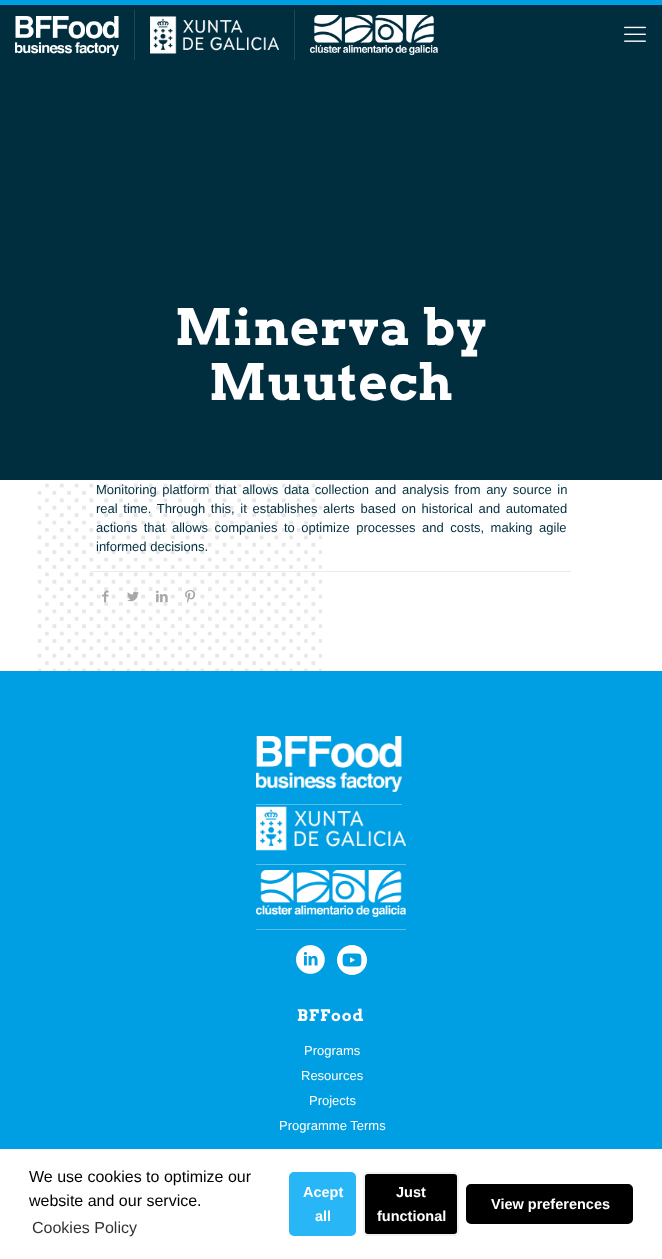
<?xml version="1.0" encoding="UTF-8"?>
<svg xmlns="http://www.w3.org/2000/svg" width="662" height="1259">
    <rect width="100%" height="100%" fill="#FFFFFF"/>
    <rect x="0" y="5" width="662" height="475" fill="#002E3F"/>
    <rect x="0" y="0" width="662" height="5" fill="#009EE2"/>
    <image x="15" y="16" width="104" height="40" href="img_01.png"/>
    <rect x="134" y="10" width="1" height="50" fill="#1F4756"/>
    <image x="150" y="16" width="129" height="38" href="img_02.png"/>
    <rect x="294" y="10" width="1" height="50" fill="#1F4756"/>
    <image x="310" y="15" width="128" height="40" href="img_03.png"/>
    <image x="624" y="26" width="22" height="16" href="img_04.png"/>
    <text x="175" y="345" font-family="Arvo" font-size="50" font-weight="700" letter-spacing="1" fill="#FFFFFF">Minerva by</text>
    <text x="209" y="400" font-family="Arvo" font-size="50" font-weight="700" letter-spacing="1" fill="#FFFFFF">Muutech</text>
    <image x="37" y="483" width="285" height="188" href="img_05.png"/>
    <text font-family="Liberation Sans" font-size="13" fill="#002E3F">
        <tspan x="96" y="494" word-spacing="2">Monitoring platform that allows data collection and analysis from any source in</tspan>
        <tspan x="96" y="513" word-spacing="2">real time. Through this, it establishes alerts based on historical and automated</tspan>
        <tspan x="96" y="532" word-spacing="2.9">actions that allows companies to optimize processes and costs, making agile</tspan>
        <tspan x="96" y="551">informed decisions.</tspan>
    </text>
    <rect x="91" y="571" width="480" height="1" fill="#EBEBEB"/>
    <image x="102" y="590" width="7" height="13" href="img_06.png"/>
    <image x="127" y="591" width="12" height="11" href="img_07.png"/>
    <image x="156" y="590" width="12" height="13" href="img_08.png"/>
    <image x="185" y="589" width="11" height="14" href="img_09.png"/>
    <rect x="0" y="671" width="662" height="478" fill="#009EE2"/>
    <rect x="256" y="804" width="146" height="1" fill="#59C0EC"/>
    <image x="256" y="736" width="146" height="56" href="img_10.png"/>
    <image x="256" y="806" width="150" height="45" href="img_11.png"/>
    <rect x="256" y="864" width="150" height="1" fill="#59C0EC"/>
    <image x="256" y="870" width="150" height="47" href="img_12.png"/>
    <rect x="256" y="929" width="150" height="1" fill="#59C0EC"/>
    <image x="296" y="945" width="29" height="29" href="img_13.png"/>
    <image x="337" y="945" width="30" height="30" href="img_14.png"/>
    <text x="297" y="1021" font-family="Arvo" font-size="16" font-weight="700" letter-spacing="1" fill="#FFFFFF">BFFood</text>
    <text x="304" y="1055" font-family="Liberation Sans" font-size="13" fill="#FFFFFF">Programs</text>
    <text x="301" y="1080" font-family="Liberation Sans" font-size="13" fill="#FFFFFF">Resources</text>
    <text x="309" y="1105" font-family="Liberation Sans" font-size="13" fill="#FFFFFF">Projects</text>
    <text x="279" y="1130" font-family="Liberation Sans" font-size="13" fill="#FFFFFF">Programme Terms</text>
    <text font-family="Liberation Sans" font-size="16" fill="#000000">
        <tspan x="29" y="1182">We use cookies to optimize our</tspan>
        <tspan x="29" y="1206">website and our service.</tspan>
    </text>
    <text x="32" y="1233" font-family="Liberation Sans" font-size="16" fill="#333333">Cookies Policy</text>
    <rect x="290" y="1173" width="65" height="62" rx="4" fill="#29B6F6" stroke="#29B6F6" stroke-width="2"/>
    <text x="303" y="1197" font-family="Liberation Sans" font-size="14.5" font-weight="700" fill="#FFFFFF">Acept</text>
    <text x="315" y="1221" font-family="Liberation Sans" font-size="14.5" font-weight="700" fill="#FFFFFF">all</text>
    <rect x="364" y="1173" width="94" height="62" rx="4" fill="#000000" stroke="#F1F1F1" stroke-width="2"/>
    <text x="396" y="1197" font-family="Liberation Sans" font-size="14.5" font-weight="700" fill="#FFFFFF">Just</text>
    <text x="377" y="1221" font-family="Liberation Sans" font-size="14.5" font-weight="700" fill="#FFFFFF">functional</text>
    <rect x="467" y="1185" width="165" height="38" rx="4" fill="#000000" stroke="#000000" stroke-width="2"/>
    <text x="491" y="1209" font-family="Liberation Sans" font-size="14.5" font-weight="700" fill="#FFFFFF">View preferences</text>
</svg>
